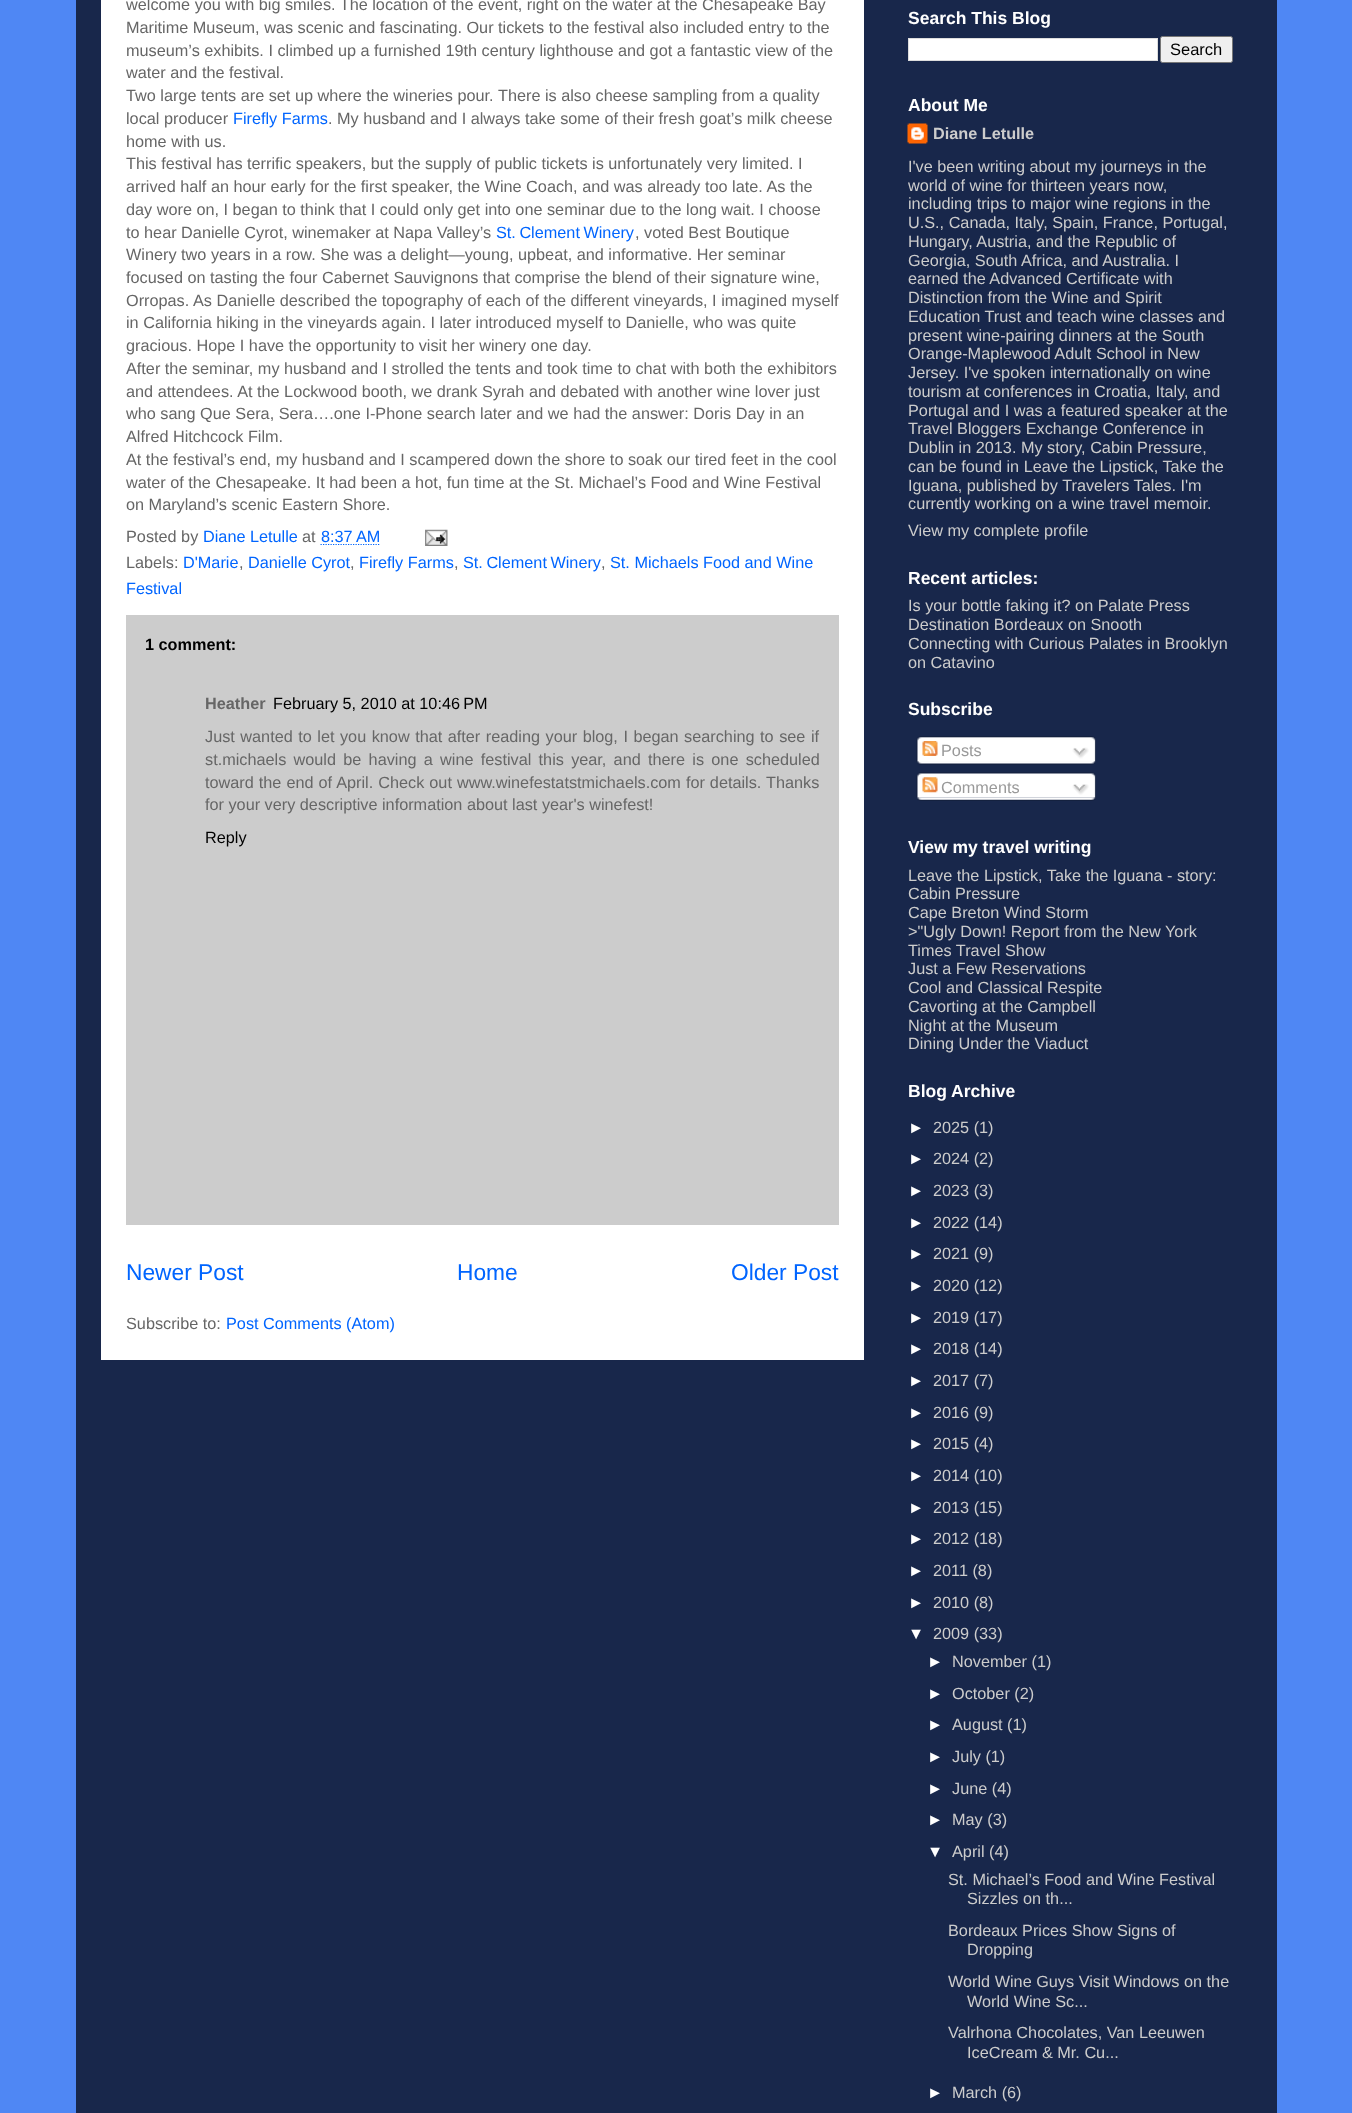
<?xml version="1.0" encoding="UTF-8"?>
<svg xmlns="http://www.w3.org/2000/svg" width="1352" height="2113">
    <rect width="100%" height="100%" fill="#4F87F4"/>
    <rect x="76" y="0" width="1201" height="2113" fill="#18274B"/>
    <rect x="101" y="0" width="763" height="1360" fill="#FFFFFF"/>
    <text font-family="Liberation Sans" font-size="16.25" fill="#666666">
        <tspan x="126" y="10">welcome you with big smiles. The location of the event, right on the water at the Chesapeake Bay</tspan>
        <tspan x="126" y="33">Maritime Museum, was scenic and fascinating. Our tickets to the festival also included entry to the</tspan>
        <tspan x="126" y="56">museum’s exhibits. I climbed up a furnished 19th century lighthouse and got a fantastic view of the</tspan>
        <tspan x="126" y="78">water and the festival.</tspan>
        <tspan x="126" y="101">Two large tents are set up where the wineries pour.</tspan>
    </text>
    <text x="498" y="101" font-family="Liberation Sans" font-size="16.25" fill="#666666">There is also cheese sampling from a quality</text>
    <text x="126" y="124" font-family="Liberation Sans" font-size="16.25" fill="#666666">local producer</text>
    <text x="233" y="124" font-family="Liberation Sans" font-size="16.25" fill="#0065FF">Firefly Farms</text>
    <text x="328" y="124" font-family="Liberation Sans" font-size="16.25" fill="#666666">. My husband and I always take some of their fresh goat’s milk cheese</text>
    <text font-family="Liberation Sans" font-size="16.25" fill="#666666">
        <tspan x="126" y="147">home with us.</tspan>
        <tspan x="126" y="169">This festival has terrific speakers, but the supply of public tickets is unfortunately very limited. I</tspan>
        <tspan x="126" y="192">arrived half an hour early for the first speaker, the Wine Coach, and was already too late. As the</tspan>
        <tspan x="126" y="215">day wore on, I began to think that I could only get into one seminar due to the long wait. I choose</tspan>
        <tspan x="126" y="238">to hear Danielle Cyrot, winemaker at Napa Valley’s</tspan>
    </text>
    <text x="496" y="238" word-spacing="-1" font-family="Liberation Sans" font-size="16.25" fill="#0065FF">St. Clement Winery</text>
    <text x="635" y="238" font-family="Liberation Sans" font-size="16.25" fill="#666666">, voted Best Boutique</text>
    <text font-family="Liberation Sans" font-size="16.25" fill="#666666">
        <tspan x="126" y="260">Winery two years in a row. She was a delight—young, upbeat, and informative. Her seminar</tspan>
        <tspan x="126" y="283">focused on tasting the four Cabernet Sauvignons that comprise the blend of their signature wine,</tspan>
        <tspan x="126" y="306">Orropas.</tspan>
    </text>
    <text x="193" y="306" font-family="Liberation Sans" font-size="16.25" fill="#666666">As Danielle described the topography of each of the different vineyards, I imagined myself</text>
    <text font-family="Liberation Sans" font-size="16.25" fill="#666666">
        <tspan x="126" y="328">in California hiking in the vineyards again. I later introduced myself to Danielle, who was quite</tspan>
        <tspan x="126" y="351">gracious. Hope I have the opportunity to visit her winery one day.</tspan>
        <tspan x="126" y="374">After the seminar, my husband and I strolled the tents and took time to chat with both the exhibitors</tspan>
        <tspan x="126" y="397">and attendees. At the Lockwood booth, we drank Syrah and debated with another wine lover just</tspan>
        <tspan x="126" y="419">who sang Que Sera, Sera….one I-Phone search later and we had the answer: Doris Day in an</tspan>
        <tspan x="126" y="442">Alfred Hitchcock Film.</tspan>
        <tspan x="126" y="465">At the festival’s end, my husband and I scampered down the shore to soak our tired feet in the cool</tspan>
        <tspan x="126" y="488">water of the Chesapeake. It had been a hot, fun time at the St. Michael’s Food and Wine Festival</tspan>
        <tspan x="126" y="510">on Maryland’s scenic Eastern Shore.</tspan>
        <tspan x="126" y="542">Posted by</tspan>
    </text>
    <text x="203" y="542" font-family="Liberation Sans" font-size="16.25" fill="#0065FF">Diane Letulle</text>
    <text x="302" y="542" font-family="Liberation Sans" font-size="16.25" fill="#666666">at</text>
    <text x="321" y="542" font-family="Liberation Sans" font-size="16.25" fill="#0065FF">8:37 AM</text>
    <path d="M 320.5 544.5 H 380" fill="none" stroke="#0065FF" stroke-width="1.2" stroke-dasharray="1.25 1.25"/>
    <image x="425" y="529" width="23" height="17" href="img_01.png"/>
    <text x="126" y="568" font-family="Liberation Sans" font-size="16.25" fill="#666666">Labels:</text>
    <text x="183" y="568" font-family="Liberation Sans" font-size="16.25" fill="#0065FF">D'Marie</text>
    <text x="239" y="568" font-family="Liberation Sans" font-size="16.25" fill="#666666">,</text>
    <text x="248" y="568" font-family="Liberation Sans" font-size="16.25" fill="#0065FF">Danielle Cyrot</text>
    <text x="350" y="568" font-family="Liberation Sans" font-size="16.25" fill="#666666">,</text>
    <text x="359" y="568" font-family="Liberation Sans" font-size="16.25" fill="#0065FF">Firefly Farms</text>
    <text x="454" y="568" font-family="Liberation Sans" font-size="16.25" fill="#666666">,</text>
    <text x="463" y="568" word-spacing="-1" font-family="Liberation Sans" font-size="16.25" fill="#0065FF">St. Clement Winery</text>
    <text x="601" y="568" font-family="Liberation Sans" font-size="16.25" fill="#666666">,</text>
    <text x="610" y="568" font-family="Liberation Sans" font-size="16.25" fill="#0065FF">St. Michaels Food and Wine</text>
    <text x="126" y="594" font-family="Liberation Sans" font-size="16.25" fill="#0065FF">Festival</text>
    <rect x="126" y="615" width="713" height="610" fill="#CCCCCC"/>
    <text x="145" y="650" font-family="Liberation Sans" font-size="16.25" font-weight="700" fill="#000000">1 comment:</text>
    <text x="205" y="709" font-family="Liberation Sans" font-size="16.25" font-weight="700" fill="#666666">Heather</text>
    <text x="273" y="709" font-family="Liberation Sans" font-size="16.25" fill="#000000">February 5, 2010 at 10:46 PM</text>
    <text font-family="Liberation Sans" font-size="16.25" fill="#666666">
        <tspan x="205" y="742" word-spacing="1">Just wanted to let you know that after reading your blog, I began searching to see if</tspan>
        <tspan x="205" y="765" word-spacing="2.75">st.michaels would be having a wine festival this year, and there is one scheduled</tspan>
        <tspan x="205" y="788" word-spacing="0.5">toward the end of April. Check out www.winefestatstmichaels.com for details. Thanks</tspan>
        <tspan x="205" y="810">for your very descriptive information about last year's winefest!</tspan>
    </text>
    <text x="205" y="843" font-family="Liberation Sans" font-size="16.25" fill="#000000">Reply</text>
    <text x="126" y="1280" font-family="Liberation Sans" font-size="22.75" fill="#0065FF">Newer Post</text>
    <text x="457" y="1280" font-family="Liberation Sans" font-size="22.75" fill="#0065FF">Home</text>
    <text x="731" y="1280" font-family="Liberation Sans" font-size="22.75" fill="#0065FF">Older Post</text>
    <text x="126" y="1329" font-family="Liberation Sans" font-size="16.25" fill="#666666">Subscribe to:</text>
    <text x="226" y="1329" font-family="Liberation Sans" font-size="16.25" fill="#0065FF">Post Comments (Atom)</text>
    <text x="908" y="24" font-family="Liberation Sans" font-size="17.5" font-weight="700" fill="#FFFFFF">Search This Blog</text>
    <rect x="908.5" y="38.5" width="249" height="22" fill="#FFFFFF" stroke="#DDDDDD"/>
    <rect x="1160.5" y="36.5" width="72" height="26" rx="2" fill="#EFEFEF" stroke="#767676"/>
    <text x="1170" y="55" font-family="Liberation Sans" font-size="16.5" fill="#000000">Search</text>
    <text x="908" y="111" font-family="Liberation Sans" font-size="17.5" font-weight="700" fill="#FFFFFF">About Me</text>
    <image x="907" y="123" width="21" height="21" href="img_02.png"/>
    <text x="933" y="139" font-family="Liberation Sans" font-size="16.25" font-weight="700" fill="#CCCCCC">Diane Letulle</text>
    <text font-family="Liberation Sans" font-size="16.25" fill="#CCCCCC">
        <tspan x="908" y="172">I've been writing about my journeys in the</tspan>
        <tspan x="908" y="191">world of wine for thirteen years now,</tspan>
        <tspan x="908" y="209">including trips to major wine regions in the</tspan>
        <tspan x="908" y="228">U.S., Canada, Italy, Spain, France, Portugal,</tspan>
        <tspan x="908" y="247">Hungary, Austria, and the Republic of</tspan>
        <tspan x="908" y="266">Georgia, South Africa, and Australia. I</tspan>
        <tspan x="908" y="284">earned the Advanced Certificate with</tspan>
        <tspan x="908" y="303">Distinction from the Wine and Spirit</tspan>
        <tspan x="908" y="322">Education Trust and teach wine classes and</tspan>
        <tspan x="908" y="341">present wine-pairing dinners at the South</tspan>
        <tspan x="908" y="359">Orange-Maplewood Adult School in New</tspan>
        <tspan x="908" y="378">Jersey. I've spoken internationally on wine</tspan>
        <tspan x="908" y="397">tourism at conferences in Croatia, Italy, and</tspan>
        <tspan x="908" y="416">Portugal and I was a featured speaker at the</tspan>
        <tspan x="908" y="434">Travel Bloggers Exchange Conference in</tspan>
        <tspan x="908" y="453">Dublin in 2013. My story, Cabin Pressure,</tspan>
        <tspan x="908" y="472">can be found in Leave the Lipstick, Take the</tspan>
        <tspan x="908" y="491">Iguana, published by Travelers Tales. I'm</tspan>
        <tspan x="908" y="509">currently working on a wine travel memoir.</tspan>
        <tspan x="908" y="536">View my complete profile</tspan>
    </text>
    <text x="908" y="584" font-family="Liberation Sans" font-size="17.5" font-weight="700" fill="#FFFFFF">Recent articles:</text>
    <text font-family="Liberation Sans" font-size="16.25" fill="#CCCCCC">
        <tspan x="908" y="611">Is your bottle faking it? on Palate Press</tspan>
        <tspan x="908" y="630">Destination Bordeaux on Snooth</tspan>
        <tspan x="908" y="649">Connecting with Curious Palates in Brooklyn</tspan>
        <tspan x="908" y="668">on Catavino</tspan>
    </text>
    <text x="908" y="715" font-family="Liberation Sans" font-size="17.5" font-weight="700" fill="#FFFFFF">Subscribe</text>
    <image x="916" y="736" width="180" height="25" href="img_03.png"/>
    <image x="922" y="741" width="16" height="15" href="img_04.png"/>
    <text x="941" y="756" font-family="Liberation Sans" font-size="16.25" fill="#999999">Posts</text>
    <image x="1072" y="747" width="17" height="12" href="img_05.png"/>
    <image x="916" y="761" width="180" height="4" href="img_06.png"/>
    <image x="916" y="772" width="180" height="26" href="img_07.png"/>
    <image x="922" y="777" width="16" height="16" href="img_08.png"/>
    <text x="941" y="793" font-family="Liberation Sans" font-size="16.25" fill="#999999">Comments</text>
    <image x="1072" y="784" width="17" height="11" href="img_09.png"/>
    <image x="917" y="797" width="179" height="4" href="img_10.png"/>
    <text x="908" y="853" font-family="Liberation Sans" font-size="17.5" font-weight="700" fill="#FFFFFF">View my travel writing</text>
    <text font-family="Liberation Sans" font-size="16.25" fill="#CCCCCC">
        <tspan x="908" y="881">Leave the Lipstick, Take the Iguana - story:</tspan>
        <tspan x="908" y="899">Cabin Pressure</tspan>
        <tspan x="908" y="918">Cape Breton Wind Storm</tspan>
        <tspan x="908" y="937">&gt;"Ugly Down! Report from the New York</tspan>
        <tspan x="908" y="956">Times Travel Show</tspan>
        <tspan x="908" y="974">Just a Few Reservations</tspan>
        <tspan x="908" y="993">Cool and Classical Respite</tspan>
        <tspan x="908" y="1012">Cavorting at the Campbell</tspan>
        <tspan x="908" y="1031">Night at the Museum</tspan>
        <tspan x="908" y="1049">Dining Under the Viaduct</tspan>
    </text>
    <text x="908" y="1097" font-family="Liberation Sans" font-size="17.5" font-weight="700" fill="#FFFFFF">Blog Archive</text>
    <text x="908" y="1133" font-family="Liberation Sans" font-size="16.25" fill="#FFFFFF">►</text>
    <text x="933" y="1133" font-family="Liberation Sans" font-size="16.25" fill="#CCCCCC">2025 (1)</text>
    <text x="908" y="1164" font-family="Liberation Sans" font-size="16.25" fill="#FFFFFF">►</text>
    <text x="933" y="1164" font-family="Liberation Sans" font-size="16.25" fill="#CCCCCC">2024 (2)</text>
    <text x="908" y="1196" font-family="Liberation Sans" font-size="16.25" fill="#FFFFFF">►</text>
    <text x="933" y="1196" font-family="Liberation Sans" font-size="16.25" fill="#CCCCCC">2023 (3)</text>
    <text x="908" y="1228" font-family="Liberation Sans" font-size="16.25" fill="#FFFFFF">►</text>
    <text x="933" y="1228" font-family="Liberation Sans" font-size="16.25" fill="#CCCCCC">2022 (14)</text>
    <text x="908" y="1259" font-family="Liberation Sans" font-size="16.25" fill="#FFFFFF">►</text>
    <text x="933" y="1259" font-family="Liberation Sans" font-size="16.25" fill="#CCCCCC">2021 (9)</text>
    <text x="908" y="1291" font-family="Liberation Sans" font-size="16.25" fill="#FFFFFF">►</text>
    <text x="933" y="1291" font-family="Liberation Sans" font-size="16.25" fill="#CCCCCC">2020 (12)</text>
    <text x="908" y="1323" font-family="Liberation Sans" font-size="16.25" fill="#FFFFFF">►</text>
    <text x="933" y="1323" font-family="Liberation Sans" font-size="16.25" fill="#CCCCCC">2019 (17)</text>
    <text x="908" y="1354" font-family="Liberation Sans" font-size="16.25" fill="#FFFFFF">►</text>
    <text x="933" y="1354" font-family="Liberation Sans" font-size="16.25" fill="#CCCCCC">2018 (14)</text>
    <text x="908" y="1386" font-family="Liberation Sans" font-size="16.25" fill="#FFFFFF">►</text>
    <text x="933" y="1386" font-family="Liberation Sans" font-size="16.25" fill="#CCCCCC">2017 (7)</text>
    <text x="908" y="1418" font-family="Liberation Sans" font-size="16.25" fill="#FFFFFF">►</text>
    <text x="933" y="1418" font-family="Liberation Sans" font-size="16.25" fill="#CCCCCC">2016 (9)</text>
    <text x="908" y="1449" font-family="Liberation Sans" font-size="16.25" fill="#FFFFFF">►</text>
    <text x="933" y="1449" font-family="Liberation Sans" font-size="16.25" fill="#CCCCCC">2015 (4)</text>
    <text x="908" y="1481" font-family="Liberation Sans" font-size="16.25" fill="#FFFFFF">►</text>
    <text x="933" y="1481" font-family="Liberation Sans" font-size="16.25" fill="#CCCCCC">2014 (10)</text>
    <text x="908" y="1513" font-family="Liberation Sans" font-size="16.25" fill="#FFFFFF">►</text>
    <text x="933" y="1513" font-family="Liberation Sans" font-size="16.25" fill="#CCCCCC">2013 (15)</text>
    <text x="908" y="1544" font-family="Liberation Sans" font-size="16.25" fill="#FFFFFF">►</text>
    <text x="933" y="1544" font-family="Liberation Sans" font-size="16.25" fill="#CCCCCC">2012 (18)</text>
    <text x="908" y="1576" font-family="Liberation Sans" font-size="16.25" fill="#FFFFFF">►</text>
    <text x="933" y="1576" font-family="Liberation Sans" font-size="16.25" fill="#CCCCCC">2011 (8)</text>
    <text x="908" y="1608" font-family="Liberation Sans" font-size="16.25" fill="#FFFFFF">►</text>
    <text x="933" y="1608" font-family="Liberation Sans" font-size="16.25" fill="#CCCCCC">2010 (8)</text>
    <text x="908" y="1639" font-family="Liberation Sans" font-size="16.25" fill="#FFFFFF">▼</text>
    <text x="933" y="1639" font-family="Liberation Sans" font-size="16.25" fill="#CCCCCC">2009 (33)</text>
    <text x="927" y="1667" font-family="Liberation Sans" font-size="16.25" fill="#FFFFFF">►</text>
    <text x="952" y="1667" font-family="Liberation Sans" font-size="16.25" fill="#CCCCCC">November (1)</text>
    <text x="927" y="1699" font-family="Liberation Sans" font-size="16.25" fill="#FFFFFF">►</text>
    <text x="952" y="1699" font-family="Liberation Sans" font-size="16.25" fill="#CCCCCC">October (2)</text>
    <text x="927" y="1730" font-family="Liberation Sans" font-size="16.25" fill="#FFFFFF">►</text>
    <text x="952" y="1730" font-family="Liberation Sans" font-size="16.25" fill="#CCCCCC">August (1)</text>
    <text x="927" y="1762" font-family="Liberation Sans" font-size="16.25" fill="#FFFFFF">►</text>
    <text x="952" y="1762" font-family="Liberation Sans" font-size="16.25" fill="#CCCCCC">July (1)</text>
    <text x="927" y="1794" font-family="Liberation Sans" font-size="16.25" fill="#FFFFFF">►</text>
    <text x="952" y="1794" font-family="Liberation Sans" font-size="16.25" fill="#CCCCCC">June (4)</text>
    <text x="927" y="1825" font-family="Liberation Sans" font-size="16.25" fill="#FFFFFF">►</text>
    <text x="952" y="1825" font-family="Liberation Sans" font-size="16.25" fill="#CCCCCC">May (3)</text>
    <text x="927" y="1857" font-family="Liberation Sans" font-size="16.25" fill="#FFFFFF">▼</text>
    <text x="952" y="1857" font-family="Liberation Sans" font-size="16.25" fill="#CCCCCC">April (4)</text>
    <text x="948" y="1885" font-family="Liberation Sans" font-size="16.25" fill="#CCCCCC">St. Michael’s Food and Wine Festival</text>
    <text x="967" y="1904" font-family="Liberation Sans" font-size="16.25" fill="#CCCCCC">Sizzles on th...</text>
    <text x="948" y="1936" font-family="Liberation Sans" font-size="16.25" fill="#CCCCCC">Bordeaux Prices Show Signs of</text>
    <text x="967" y="1955" font-family="Liberation Sans" font-size="16.25" fill="#CCCCCC">Dropping</text>
    <text x="948" y="1987" font-family="Liberation Sans" font-size="16.25" fill="#CCCCCC">World Wine Guys Visit Windows on the</text>
    <text x="967" y="2007" font-family="Liberation Sans" font-size="16.25" fill="#CCCCCC">World Wine Sc...</text>
    <text x="948" y="2038" font-family="Liberation Sans" font-size="16.25" fill="#CCCCCC">Valrhona Chocolates, Van Leeuwen</text>
    <text x="967" y="2058" font-family="Liberation Sans" font-size="16.25" fill="#CCCCCC">IceCream &amp; Mr. Cu...</text>
    <text x="927" y="2098" font-family="Liberation Sans" font-size="16.25" fill="#FFFFFF">►</text>
    <text x="952" y="2098" font-family="Liberation Sans" font-size="16.25" fill="#CCCCCC">March (6)</text>
</svg>
